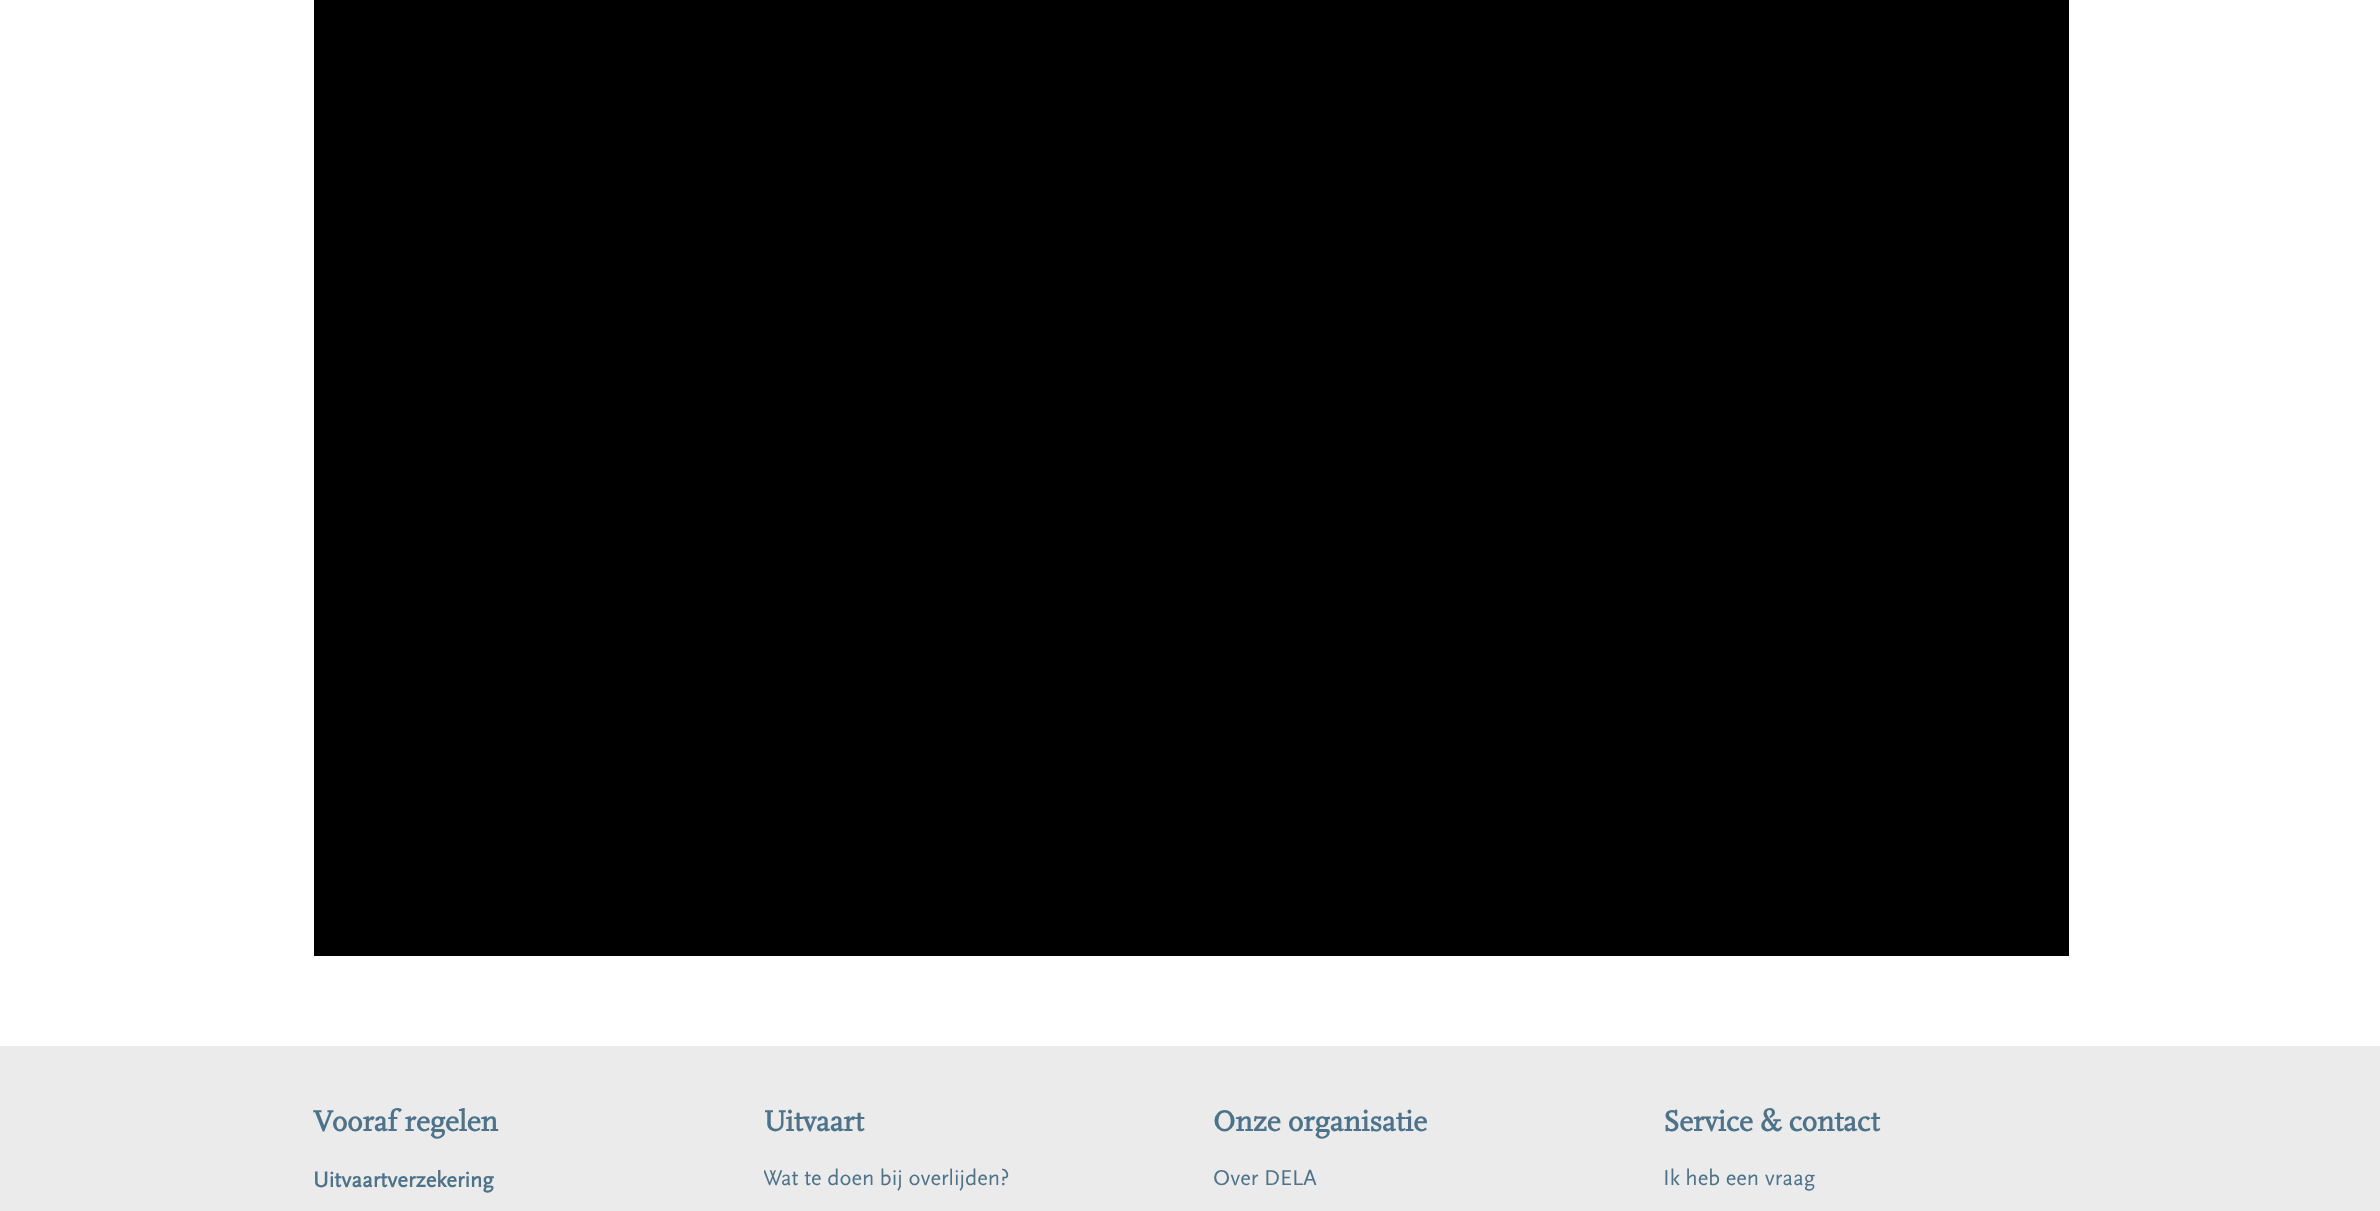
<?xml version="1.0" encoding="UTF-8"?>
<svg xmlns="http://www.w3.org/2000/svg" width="2380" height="1211">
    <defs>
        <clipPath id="clip1"><rect x="764" y="1106" width="405" height="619"/></clipPath>
    </defs>
    <rect width="100%" height="100%" fill="#FFFFFF"/>
    <rect x="314" y="0" width="877" height="956" fill="#000000"/>
    <rect x="1191" y="0" width="878" height="956" fill="#000000"/>
    <rect x="0" y="1046" width="2380" height="165" fill="#EBEBEB"/>
    <text x="313" y="1131" font-family="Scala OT" font-size="30" font-weight="700" fill="#4D738A">Vooraf regelen</text>
    <text x="313" y="1187" font-family="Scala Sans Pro" font-size="22.5" font-weight="700" fill="#4D738A">Uitvaartverzekering</text>
    <text x="763" y="1131" font-family="Scala OT" font-size="30" font-weight="700" fill="#4D738A">Uitvaart</text>
    <g clip-path="url(#clip1)">
        <text x="763" y="1185" font-family="Scala Sans Pro" font-size="22.5" fill="#4D738A">Wat te doen bij overlijden?</text>
    </g>
    <text x="1213" y="1131" font-family="Scala OT" font-size="30" font-weight="700" fill="#4D738A">Onze organisatie</text>
    <text x="1213" y="1185" font-family="Scala Sans Pro" font-size="22.5" fill="#4D738A">Over DELA</text>
    <text x="1663" y="1131" font-family="Scala OT" font-size="30" font-weight="700" fill="#4D738A">Service &amp; contact</text>
    <text x="1663" y="1185" font-family="Scala Sans Pro" font-size="22.5" fill="#4D738A">Ik heb een vraag</text>
</svg>
